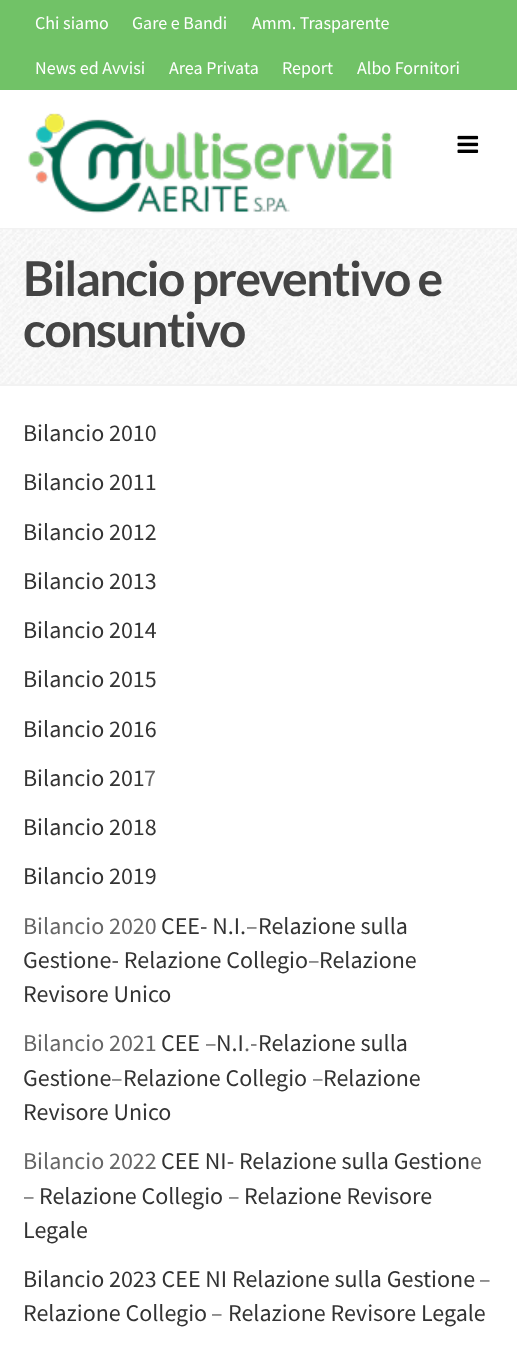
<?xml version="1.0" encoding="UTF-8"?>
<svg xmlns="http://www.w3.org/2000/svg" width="517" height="1345">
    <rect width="100%" height="100%" fill="#FFFFFF"/>
    <rect x="0" y="0" width="517" height="90" fill="#71C267"/>
    <text x="35" y="29" font-family="Source Sans Pro" font-size="18" fill="#FFFFFF">Chi siamo</text>
    <text x="132" y="29" font-family="Source Sans Pro" font-size="18" fill="#FFFFFF">Gare e Bandi</text>
    <text x="252" y="29" font-family="Source Sans Pro" font-size="18" fill="#FFFFFF">Amm. Trasparente</text>
    <text x="35" y="74" font-family="Source Sans Pro" font-size="18" fill="#FFFFFF">News ed Avvisi</text>
    <text x="169" y="74" font-family="Source Sans Pro" font-size="18" fill="#FFFFFF">Area Privata</text>
    <text x="282" y="74" font-family="Source Sans Pro" font-size="18" fill="#FFFFFF">Report</text>
    <text x="357" y="74" font-family="Source Sans Pro" font-size="18" fill="#FFFFFF">Albo Fornitori</text>
    <rect x="0" y="228" width="517" height="2" fill="#F2F2F2"/>
    <image x="28" y="113" width="364" height="101" href="img_01.png"/>
    <image x="457" y="135" width="22" height="18" href="img_02.png"/>
    <image x="0" y="229" width="517" height="155" href="img_03.png"/>
    <rect x="0" y="384" width="517" height="2" fill="#F2F2F2"/>
    <text font-family="Lato" font-size="48" font-weight="700" letter-spacing="-1.5" fill="#444444">
        <tspan x="23" y="296">Bilancio preventivo e</tspan>
        <tspan x="23" y="347">consuntivo</tspan>
    </text>
    <text x="23" y="441" font-family="Source Sans Pro" font-size="24" fill="#333333">Bilancio 2010</text>
    <text x="23" y="490" font-family="Source Sans Pro" font-size="24" fill="#333333">Bilancio 2011</text>
    <text x="23" y="540" font-family="Source Sans Pro" font-size="24" fill="#333333">Bilancio 2012</text>
    <text x="23" y="589" font-family="Source Sans Pro" font-size="24" fill="#333333">Bilancio 2013</text>
    <text x="23" y="638" font-family="Source Sans Pro" font-size="24" fill="#333333">Bilancio 2014</text>
    <text x="23" y="687" font-family="Source Sans Pro" font-size="24" fill="#333333">Bilancio 2015</text>
    <text x="23" y="737" font-family="Source Sans Pro" font-size="24" fill="#333333">Bilancio 2016</text>
    <text x="23" y="786" font-family="Source Sans Pro" font-size="24" fill="#333333">Bilancio 201</text>
    <text x="144" y="786" font-family="Source Sans Pro" font-size="24" fill="#666666">7</text>
    <text x="23" y="835" font-family="Source Sans Pro" font-size="24" fill="#333333">Bilancio 2018</text>
    <text x="23" y="884" font-family="Source Sans Pro" font-size="24" fill="#333333">Bilancio 2019</text>
    <text x="23" y="934" font-family="Source Sans Pro" font-size="24" fill="#666666">Bilancio 2020</text>
    <text x="161" y="934" font-family="Source Sans Pro" font-size="24" fill="#333333">CEE- N.I.</text>
    <text x="246" y="934" font-family="Source Sans Pro" font-size="24" fill="#666666">–</text>
    <text x="258" y="934" font-family="Source Sans Pro" font-size="24" fill="#333333">Relazione sulla</text>
    <text x="23" y="968" font-family="Source Sans Pro" font-size="24" fill="#333333">Gestione- Relazione Collegio</text>
    <text x="308" y="968" font-family="Source Sans Pro" font-size="24" fill="#666666">–</text>
    <text x="319" y="968" font-family="Source Sans Pro" font-size="24" fill="#333333">Relazione</text>
    <text x="23" y="1002" font-family="Source Sans Pro" font-size="24" fill="#333333">Revisore Unico</text>
    <text x="23" y="1051" font-family="Source Sans Pro" font-size="24" fill="#666666">Bilancio 2021</text>
    <text x="161" y="1051" font-family="Source Sans Pro" font-size="24" fill="#333333">CEE</text>
    <text x="205" y="1051" font-family="Source Sans Pro" font-size="24" fill="#666666">–</text>
    <text x="216" y="1051" font-family="Source Sans Pro" font-size="24" fill="#333333">N.I</text>
    <text x="244" y="1051" font-family="Source Sans Pro" font-size="24" fill="#666666">.-</text>
    <text x="258" y="1051" font-family="Source Sans Pro" font-size="24" fill="#333333">Relazione sulla</text>
    <text x="23" y="1086" font-family="Source Sans Pro" font-size="24" fill="#333333">Gestione</text>
    <text x="111" y="1086" font-family="Source Sans Pro" font-size="24" fill="#666666">–</text>
    <text x="123" y="1086" font-family="Source Sans Pro" font-size="24" fill="#333333">Relazione Collegio</text>
    <text x="312" y="1086" font-family="Source Sans Pro" font-size="24" fill="#666666">–</text>
    <text x="323" y="1086" font-family="Source Sans Pro" font-size="24" fill="#333333">Relazione</text>
    <text x="23" y="1120" font-family="Source Sans Pro" font-size="24" fill="#333333">Revisore Unico</text>
    <text x="23" y="1169" font-family="Source Sans Pro" font-size="24" fill="#666666">Bilancio 2022</text>
    <text x="161" y="1169" font-family="Source Sans Pro" font-size="24" fill="#333333">CEE NI- Relazione sulla Gestion</text>
    <text x="470" y="1169" font-family="Source Sans Pro" font-size="24" fill="#666666">e</text>
    <text x="23" y="1204" font-family="Source Sans Pro" font-size="24" fill="#666666">–</text>
    <text x="39" y="1204" font-family="Source Sans Pro" font-size="24" fill="#333333">Relazione Collegio</text>
    <text x="228" y="1204" font-family="Source Sans Pro" font-size="24" fill="#666666">–</text>
    <text x="244" y="1204" font-family="Source Sans Pro" font-size="24" fill="#333333">Relazione Revisore</text>
    <text x="23" y="1238" font-family="Source Sans Pro" font-size="24" fill="#333333">Legale</text>
    <text x="23" y="1287" font-family="Source Sans Pro" font-size="24" fill="#333333">Bilancio 2023 CEE NI Relazione sulla Gestione</text>
    <text x="479" y="1287" font-family="Source Sans Pro" font-size="24" fill="#666666">–</text>
    <text x="23" y="1321" font-family="Source Sans Pro" font-size="24" fill="#333333">Relazione Collegio</text>
    <text x="211" y="1321" font-family="Source Sans Pro" font-size="24" fill="#666666">–</text>
    <text x="228" y="1321" font-family="Source Sans Pro" font-size="24" fill="#333333">Relazione Revisore Legale</text>
</svg>
